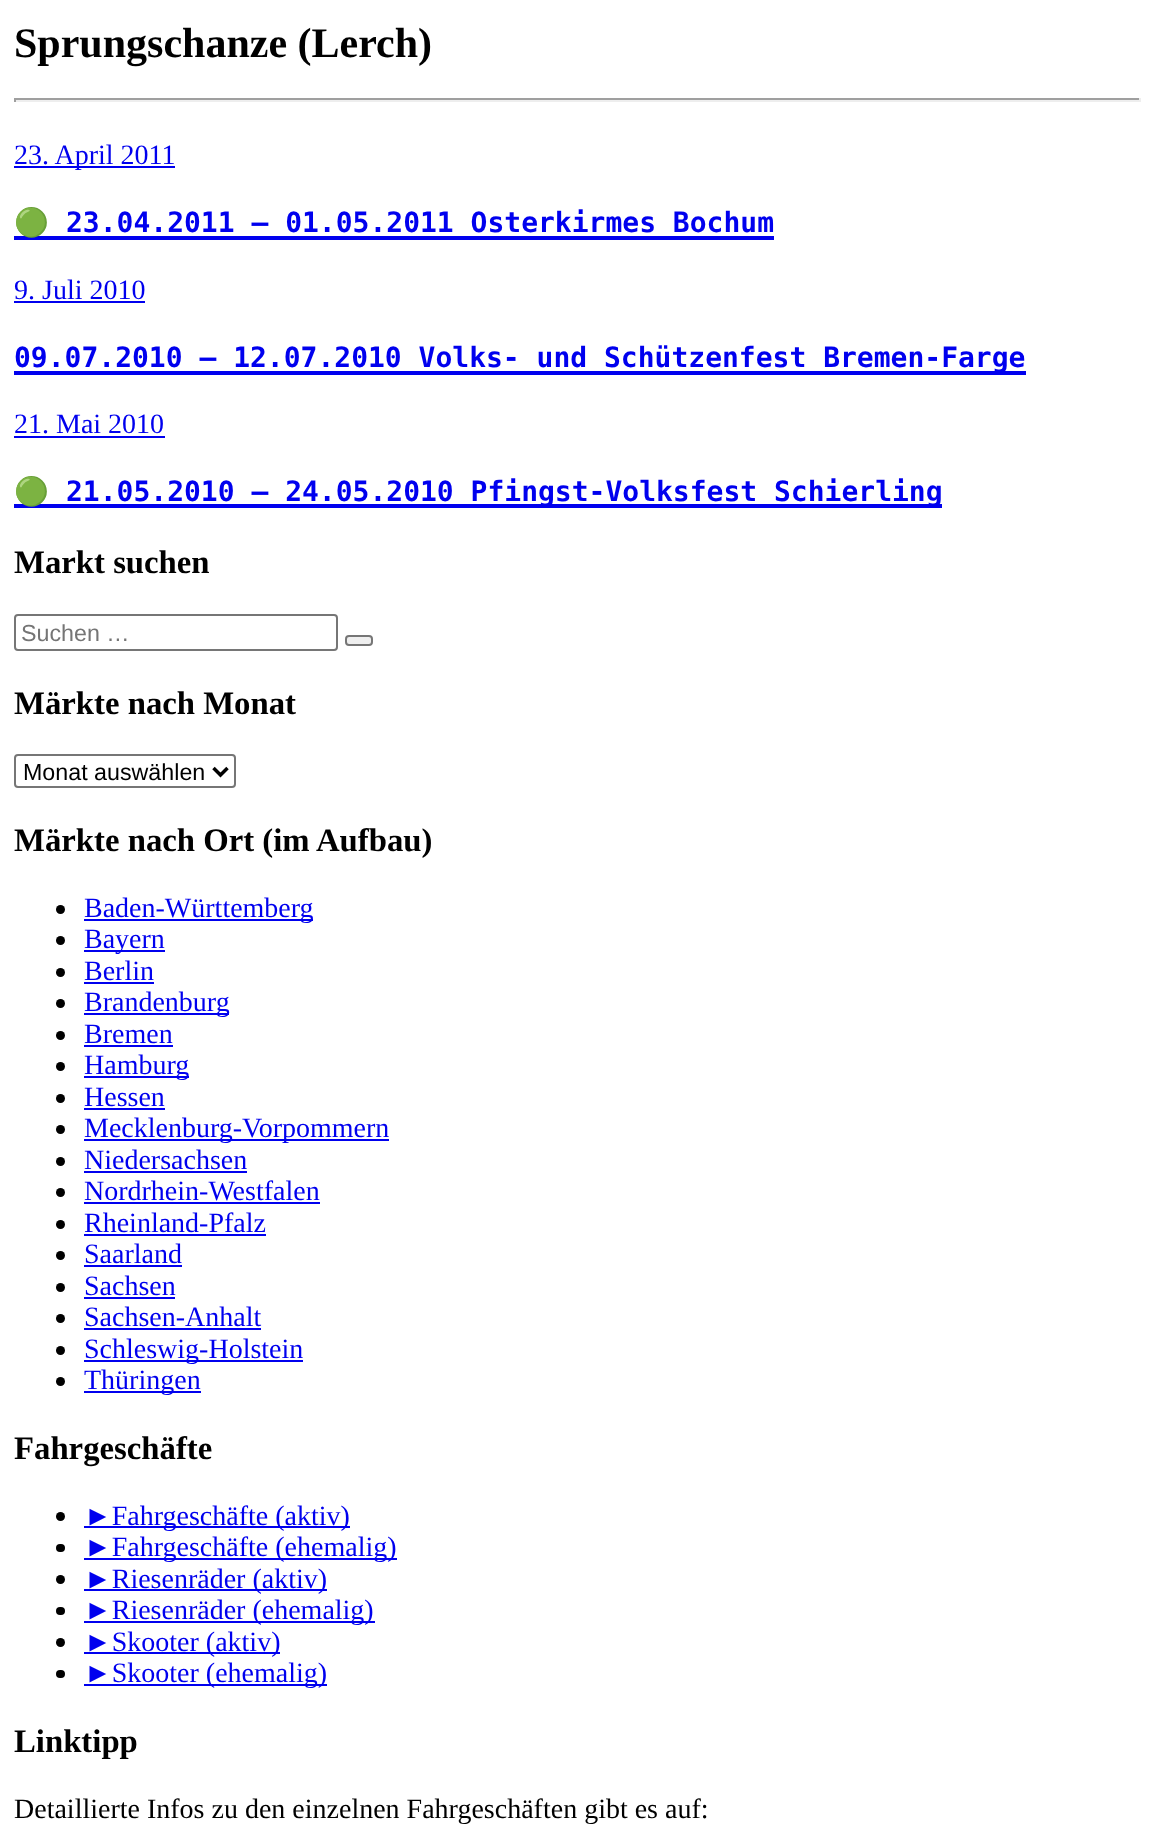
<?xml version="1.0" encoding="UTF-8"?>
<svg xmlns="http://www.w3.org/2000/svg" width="1155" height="1848">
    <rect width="100%" height="100%" fill="#FFFFFF"/>
    <text x="14" y="57" font-family="Liberation Serif" font-size="42" font-weight="700" fill="#000000">Sprungschanze (Lerch)</text>
    <rect x="14" y="98" width="1127" height="2" fill="#9F9F9F"/>
    <rect x="1139" y="98" width="2" height="4" fill="#EEEEEE"/>
    <rect x="14" y="100" width="1127" height="2" fill="#EEEEEE"/>
    <rect x="14" y="98" width="2" height="4" fill="#9F9F9F"/>
    <rect x="14" y="166" width="161" height="2" fill="#0000EE"/>
    <text x="14" y="164" font-family="Liberation Serif" font-size="28" fill="#0000EE">23. April 2011</text>
    <rect x="14" y="236" width="760" height="4" fill="#0000EE"/>
    <text x="14" y="232" font-family="Noto Color Emoji" font-size="28" font-weight="700" fill="#0000EE">🟢</text>
    <text x="66" y="232" font-family="DejaVu Sans Mono" font-size="28" font-weight="700" fill="#0000EE">23.04.2011 – 01.05.2011 Osterkirmes Bochum</text>
    <text x="14" y="299" font-family="Liberation Serif" font-size="28" fill="#0000EE">9. Juli 2010</text>
    <rect x="14" y="301" width="131" height="2" fill="#0000EE"/>
    <rect x="14" y="371" width="1012" height="4" fill="#0000EE"/>
    <text x="14" y="367" font-family="DejaVu Sans Mono" font-size="28" font-weight="700" fill="#0000EE">09.07.2010 – 12.07.2010 Volks- und Schützenfest Bremen-Farge</text>
    <text x="14" y="433" font-family="Liberation Serif" font-size="28" fill="#0000EE">21. Mai 2010</text>
    <rect x="14" y="436" width="151" height="2" fill="#0000EE"/>
    <rect x="14" y="504" width="928" height="4" fill="#0000EE"/>
    <text x="14" y="501" font-family="Noto Color Emoji" font-size="28" font-weight="700" fill="#0000EE">🟢</text>
    <text x="66" y="501" font-family="DejaVu Sans Mono" font-size="28" font-weight="700" fill="#0000EE">21.05.2010 – 24.05.2010 Pfingst-Volksfest Schierling</text>
    <text x="14" y="573" font-family="Liberation Serif" font-size="32.75" font-weight="700" fill="#000000">Markt suchen</text>
    <rect x="15" y="615" width="322" height="35" rx="3" fill="none" stroke="#767676" stroke-width="2"/>
    <text x="21" y="641" font-family="Liberation Sans" font-size="23.25" fill="#757575">Suchen …</text>
    <rect x="346" y="636" width="26" height="9" rx="3" fill="#EFEFEF" stroke="#767676" stroke-width="2"/>
    <text x="14" y="714" font-family="Liberation Serif" font-size="32.75" font-weight="700" fill="#000000">Märkte nach Monat</text>
    <rect x="15" y="755" width="220" height="32" rx="3" fill="none" stroke="#767676" stroke-width="2"/>
    <path d="M 213.5 768 L 220.5 775 L 227.5 768" fill="none" stroke="#000000" stroke-width="3.5"/>
    <text x="23" y="780" font-family="Liberation Sans" font-size="23.25" fill="#000000">Monat auswählen</text>
    <text x="14" y="851" font-family="Liberation Serif" font-size="32.75" font-weight="700" fill="#000000">Märkte nach Ort (im Aufbau)</text>
    <circle cx="60.5" cy="909.5" r="4.5" fill="#000000"/>
    <rect x="84" y="919" width="229" height="2" fill="#0000EE"/>
    <text x="84" y="917" font-family="Liberation Serif" font-size="28" fill="#0000EE">Baden-Württemberg</text>
    <circle cx="60.5" cy="940.5" r="4.5" fill="#000000"/>
    <rect x="84" y="950" width="81" height="2" fill="#0000EE"/>
    <text x="84" y="948" font-family="Liberation Serif" font-size="28" fill="#0000EE">Bayern</text>
    <circle cx="60.5" cy="972.5" r="4.5" fill="#000000"/>
    <text x="84" y="980" font-family="Liberation Serif" font-size="28" fill="#0000EE">Berlin</text>
    <rect x="84" y="982" width="70" height="2" fill="#0000EE"/>
    <circle cx="60.5" cy="1003.5" r="4.5" fill="#000000"/>
    <rect x="84" y="1013" width="145" height="2" fill="#0000EE"/>
    <text x="84" y="1011" font-family="Liberation Serif" font-size="28" fill="#0000EE">Brandenburg</text>
    <circle cx="60.5" cy="1035.5" r="4.5" fill="#000000"/>
    <text x="84" y="1043" font-family="Liberation Serif" font-size="28" fill="#0000EE">Bremen</text>
    <rect x="84" y="1045" width="89" height="2" fill="#0000EE"/>
    <circle cx="60.5" cy="1066.5" r="4.5" fill="#000000"/>
    <rect x="84" y="1076" width="105" height="2" fill="#0000EE"/>
    <text x="84" y="1074" font-family="Liberation Serif" font-size="28" fill="#0000EE">Hamburg</text>
    <circle cx="60.5" cy="1098.5" r="4.5" fill="#000000"/>
    <text x="84" y="1106" font-family="Liberation Serif" font-size="28" fill="#0000EE">Hessen</text>
    <rect x="84" y="1108" width="81" height="2" fill="#0000EE"/>
    <circle cx="60.5" cy="1129.5" r="4.5" fill="#000000"/>
    <rect x="84" y="1139" width="305" height="2" fill="#0000EE"/>
    <text x="84" y="1137" font-family="Liberation Serif" font-size="28" fill="#0000EE">Mecklenburg-Vorpommern</text>
    <circle cx="60.5" cy="1161.5" r="4.5" fill="#000000"/>
    <text x="84" y="1169" font-family="Liberation Serif" font-size="28" fill="#0000EE">Niedersachsen</text>
    <rect x="84" y="1171" width="163" height="2" fill="#0000EE"/>
    <circle cx="60.5" cy="1192.5" r="4.5" fill="#000000"/>
    <text x="84" y="1200" font-family="Liberation Serif" font-size="28" fill="#0000EE">Nordrhein-Westfalen</text>
    <rect x="84" y="1202" width="236" height="2" fill="#0000EE"/>
    <circle cx="60.5" cy="1224.5" r="4.5" fill="#000000"/>
    <text x="84" y="1232" font-family="Liberation Serif" font-size="28" fill="#0000EE">Rheinland-Pfalz</text>
    <rect x="84" y="1234" width="182" height="2" fill="#0000EE"/>
    <circle cx="60.5" cy="1255.5" r="4.5" fill="#000000"/>
    <text x="84" y="1263" font-family="Liberation Serif" font-size="28" fill="#0000EE">Saarland</text>
    <rect x="84" y="1265" width="98" height="2" fill="#0000EE"/>
    <circle cx="60.5" cy="1287.5" r="4.5" fill="#000000"/>
    <text x="84" y="1295" font-family="Liberation Serif" font-size="28" fill="#0000EE">Sachsen</text>
    <rect x="84" y="1297" width="91" height="2" fill="#0000EE"/>
    <circle cx="60.5" cy="1318.5" r="4.5" fill="#000000"/>
    <text x="84" y="1326" font-family="Liberation Serif" font-size="28" fill="#0000EE">Sachsen-Anhalt</text>
    <rect x="84" y="1328" width="177" height="2" fill="#0000EE"/>
    <circle cx="60.5" cy="1350.5" r="4.5" fill="#000000"/>
    <rect x="84" y="1360" width="219" height="2" fill="#0000EE"/>
    <text x="84" y="1358" font-family="Liberation Serif" font-size="28" fill="#0000EE">Schleswig-Holstein</text>
    <circle cx="60.5" cy="1381.5" r="4.5" fill="#000000"/>
    <rect x="84" y="1391" width="117" height="2" fill="#0000EE"/>
    <text x="84" y="1389" font-family="Liberation Serif" font-size="28" fill="#0000EE">Thüringen</text>
    <text x="14" y="1459" font-family="Liberation Serif" font-size="32.75" font-weight="700" fill="#000000">Fahrgeschäfte</text>
    <circle cx="60.5" cy="1516.5" r="4.5" fill="#000000"/>
    <rect x="84" y="1526" width="266" height="2" fill="#0000EE"/>
    <text x="84" y="1525" font-family="Liberation Serif" font-size="28" fill="#0000EE">►Fahrgeschäfte (aktiv)</text>
    <rect x="56" y="1544" width="9" height="8" rx="4" fill="#000000"/>
    <rect x="84" y="1558" width="313" height="2" fill="#0000EE"/>
    <text x="84" y="1556" font-family="Liberation Serif" font-size="28" fill="#0000EE">►Fahrgeschäfte (ehemalig)</text>
    <circle cx="60.5" cy="1579.5" r="4.5" fill="#000000"/>
    <rect x="84" y="1589" width="243" height="2" fill="#0000EE"/>
    <text x="84" y="1588" font-family="Liberation Serif" font-size="28" fill="#0000EE">►Riesenräder (aktiv)</text>
    <rect x="56" y="1607" width="9" height="8" rx="4" fill="#000000"/>
    <rect x="84" y="1621" width="291" height="2" fill="#0000EE"/>
    <text x="84" y="1619" font-family="Liberation Serif" font-size="28" fill="#0000EE">►Riesenräder (ehemalig)</text>
    <circle cx="60.5" cy="1642.5" r="4.5" fill="#000000"/>
    <rect x="84" y="1652" width="196" height="2" fill="#0000EE"/>
    <text x="84" y="1651" font-family="Liberation Serif" font-size="28" fill="#0000EE">►Skooter (aktiv)</text>
    <rect x="56" y="1670" width="9" height="8" rx="4" fill="#000000"/>
    <rect x="84" y="1684" width="243" height="2" fill="#0000EE"/>
    <text x="84" y="1682" font-family="Liberation Serif" font-size="28" fill="#0000EE">►Skooter (ehemalig)</text>
    <text x="14" y="1752" font-family="Liberation Serif" font-size="32.75" font-weight="700" fill="#000000">Linktipp</text>
    <text x="14" y="1818" font-family="Liberation Serif" font-size="28" fill="#000000">Detaillierte Infos zu den einzelnen Fahrgeschäften gibt es auf:</text>
</svg>
